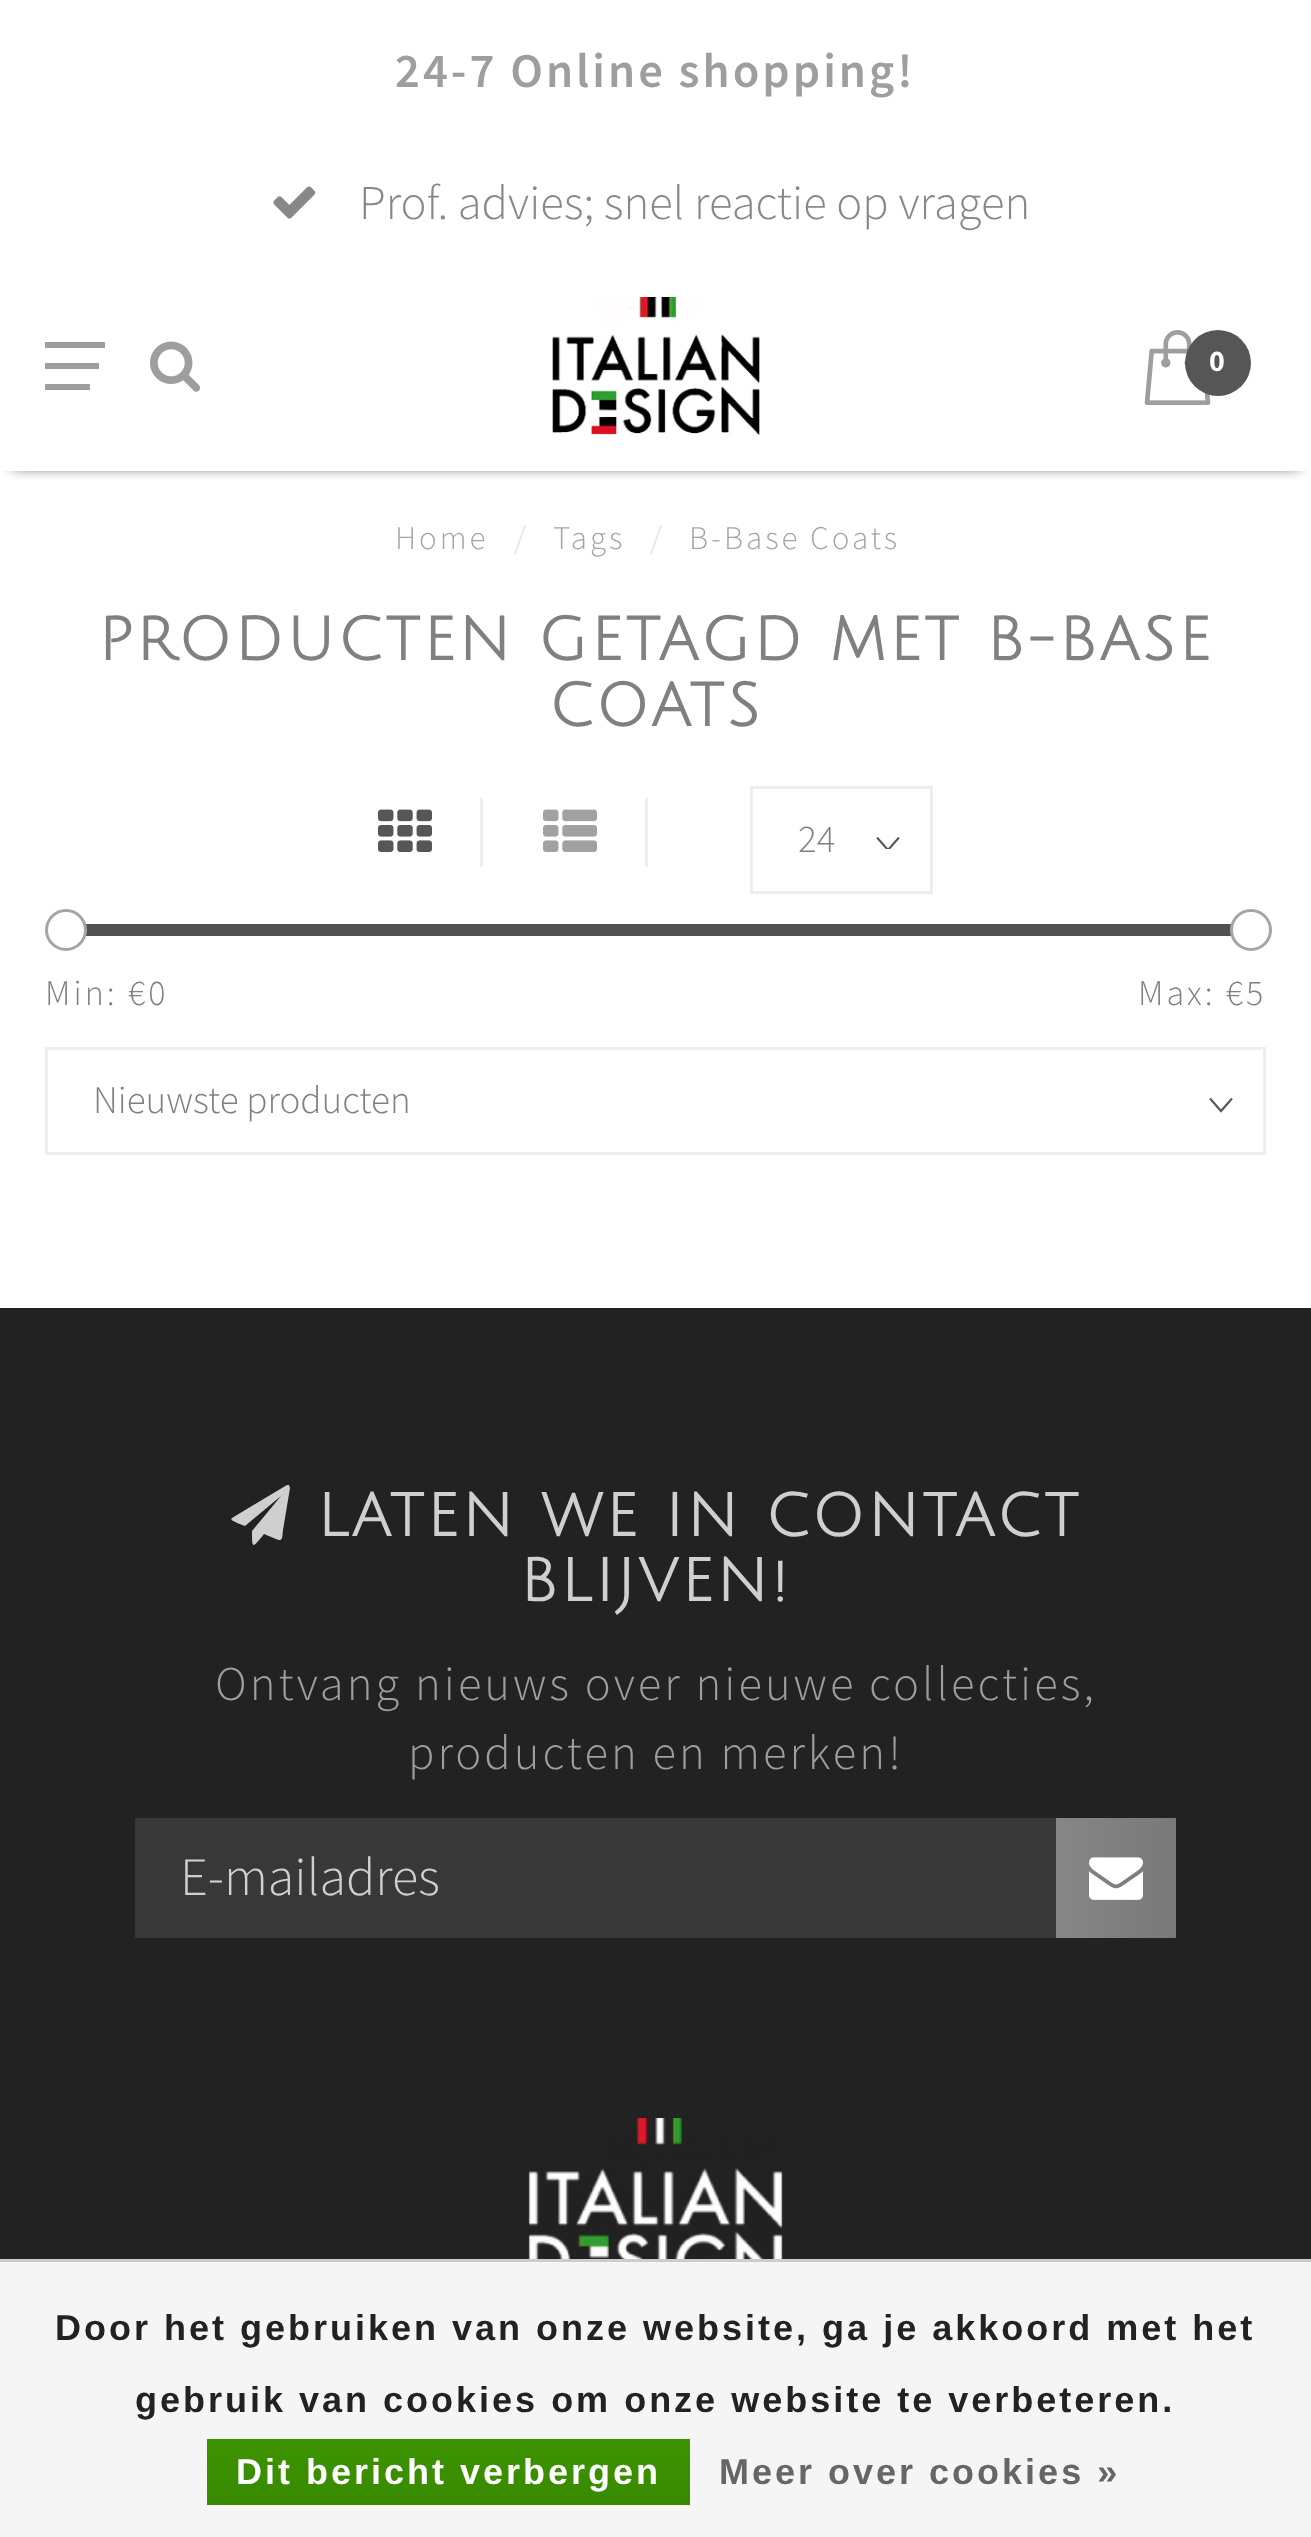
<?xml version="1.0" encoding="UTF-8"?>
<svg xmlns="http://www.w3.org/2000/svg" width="1311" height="2537">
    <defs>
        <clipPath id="clip1"><rect x="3" y="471" width="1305" height="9"/></clipPath>
        <filter id="blur1" x="-50%" y="-200%" width="200%" height="500%"><feGaussianBlur stdDeviation="7.5"/></filter>
        <clipPath id="clip2"><rect x="876" y="837" width="24" height="12"/></clipPath>
        <linearGradient id="g1" gradientUnits="userSpaceOnUse" x1="1056" y1="1878" x2="1176" y2="1878"><stop offset="0" stop-color="#868686"/><stop offset="1" stop-color="#797979"/></linearGradient>
        <linearGradient id="g2" gradientUnits="userSpaceOnUse" x1="449" y1="2439" x2="449" y2="2505"><stop offset="0" stop-color="#3C9300"/><stop offset="1" stop-color="#398A00"/></linearGradient>
    </defs>
    <rect width="100%" height="100%" fill="#FFFFFF"/>
    <text x="395" y="87" font-family="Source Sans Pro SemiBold" font-size="48.6" font-weight="600" letter-spacing="3" fill="#9F9E9E">24-7 Online shopping!</text>
    <image x="273" y="186" width="43" height="33" href="img_01.png"/>
    <text x="359" y="219" font-family="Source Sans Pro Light" font-size="48.6" font-weight="300" fill="#888888">Prof. advies; snel reactie op vragen</text>
    <g clip-path="url(#clip1)">
        <rect x="12" y="279" width="1287" height="186" fill="#000000" filter="url(#blur1)"/>
    </g>
    <rect x="45" y="342" width="60" height="6" fill="#9F9E9E"/>
    <rect x="45" y="363" width="54" height="6" fill="#9F9E9E"/>
    <rect x="45" y="384" width="45" height="6" fill="#9F9E9E"/>
    <image x="150" y="341" width="51" height="51" href="img_02.png"/>
    <image x="552" y="297" width="208" height="141" href="img_03.png"/>
    <image x="1144" y="330" width="67" height="75" href="img_04.png"/>
    <circle cx="1218" cy="363" r="33" fill="#565656"/>
    <text x="1209" y="371" font-family="Source Sans Pro" font-size="30" font-weight="700" letter-spacing="3" fill="#FFFFFF">0</text>
    <text x="395" y="549" font-family="Source Sans Pro Light" font-size="33" font-weight="300" letter-spacing="3" fill="#A5A5A5">Home</text>
    <text x="514" y="549" font-family="Source Sans Pro Light" font-size="33" font-weight="300" letter-spacing="3" fill="#DDDDDD">/</text>
    <text x="553" y="549" font-family="Source Sans Pro Light" font-size="33" font-weight="300" letter-spacing="3" fill="#A5A5A5">Tags</text>
    <text x="650" y="549" font-family="Source Sans Pro Light" font-size="33" font-weight="300" letter-spacing="3" fill="#DDDDDD">/</text>
    <text x="689" y="549" font-family="Source Sans Pro Light" font-size="33" font-weight="300" letter-spacing="3" fill="#A5A5A5">B-Base Coats</text>
    <text x="98" y="660" font-family="Julius Sans One" font-size="60" font-weight="700" letter-spacing="3" fill="#808080">PRODUCTEN GETAGD MET B-BASE</text>
    <text x="549" y="726" font-family="Julius Sans One" font-size="60" font-weight="700" letter-spacing="3" fill="#808080">COATS</text>
    <rect x="480" y="798" width="3" height="69" fill="#EEEEEE"/>
    <image x="378" y="809" width="54" height="43" href="img_05.png"/>
    <rect x="645" y="798" width="3" height="69" fill="#EEEEEE"/>
    <image x="543" y="809" width="54" height="43" href="img_06.png"/>
    <g clip-path="url(#clip2)">
        <path d="M 899 837.5 L 888 850 L 877 837.5" fill="none" stroke="#595959" stroke-width="2.2"/>
    </g>
    <rect x="751.5" y="787.5" width="180" height="105" fill="none" stroke="#EEEEEE" stroke-width="3"/>
    <text x="798" y="852" font-family="Source Sans Pro Light" font-size="39" font-weight="300" fill="#808080">24</text>
    <rect x="45" y="924" width="1" height="12" fill="#F5F5F5"/>
    <rect x="86" y="924" width="1145" height="12" fill="#515151"/>
    <circle cx="66" cy="930" r="19.5" fill="#FFFFFF" stroke="#A5A5A5" stroke-width="3"/>
    <circle cx="1251" cy="930" r="19.5" fill="#FFFFFF" stroke="#A5A5A5" stroke-width="3"/>
    <text x="45" y="1005" font-family="Source Sans Pro Light" font-size="36" font-weight="300" letter-spacing="3" fill="#808080">Min: €0</text>
    <text x="1138" y="1005" font-family="Source Sans Pro Light" font-size="36" font-weight="300" letter-spacing="3" fill="#808080">Max: €5</text>
    <path d="M 1232 1098.5 L 1221 1111 L 1210 1098.5" fill="none" stroke="#595959" stroke-width="2.2"/>
    <rect x="46.5" y="1048.5" width="1218" height="105" fill="none" stroke="#EEEEEE" stroke-width="3"/>
    <text x="93" y="1113" font-family="Source Sans Pro Light" font-size="39" font-weight="300" fill="#808080">Nieuwste producten</text>
    <rect x="0" y="1308" width="1311" height="951" fill="#222222"/>
    <path d="M 289 1485 L 290 1488 L 283 1530 C 282 1538 283 1542 276 1539 L 264 1534 C 252 1549 252 1549 252 1531 L 281 1496 L 245 1526 L 237 1523 C 236 1522 229 1520 232 1518 L 287 1485 Z" fill="#CFCFCF"/>
    <text x="317" y="1536" font-family="Julius Sans One" font-size="59.4" font-weight="700" letter-spacing="3" fill="#CFCFCF">LATEN WE IN CONTACT</text>
    <text x="520" y="1601" font-family="Julius Sans One" font-size="59.4" font-weight="700" letter-spacing="3" fill="#CFCFCF">BLIJVEN!</text>
    <text x="215" y="1700" font-family="Source Sans Pro Light" font-size="48.6" font-weight="300" letter-spacing="3" fill="#9F9E9E">Ontvang nieuws over nieuwe collecties,</text>
    <text x="408" y="1769" font-family="Source Sans Pro Light" font-size="48.6" font-weight="300" letter-spacing="3" fill="#9F9E9E">producten en merken!</text>
    <rect x="135" y="1818" width="921" height="120" fill="#383838"/>
    <text x="180" y="1895" font-family="Source Sans Pro Light" font-size="54" font-weight="300" fill="#CFCFCF">E-mailadres</text>
    <rect x="1056" y="1818" width="120" height="120" fill="url(#g1)"/>
    <image x="1089" y="1857" width="54" height="43" href="img_07.png"/>
    <image x="528" y="2118" width="255" height="141" href="img_08.png"/>
    <rect x="0" y="2262" width="1311" height="275" fill="#F5F5F5"/>
    <rect x="0" y="2259" width="1311" height="3" fill="#CCCCCC"/>
    <text x="55" y="2340" font-family="Liberation Sans" font-size="36" font-weight="700" letter-spacing="3" fill="#222222">Door het gebruiken van onze website, ga je akkoord met het</text>
    <text x="135" y="2412" font-family="Liberation Sans" font-size="36" font-weight="700" letter-spacing="3" fill="#222222">gebruik van cookies om onze website te verbeteren.</text>
    <rect x="207" y="2439" width="483" height="66" fill="url(#g2)"/>
    <text x="236" y="2484" font-family="Liberation Sans" font-size="36" font-weight="700" letter-spacing="3" fill="#FFFFFF">Dit bericht verbergen</text>
    <text x="719" y="2484" font-family="Liberation Sans" font-size="36" font-weight="700" letter-spacing="3" fill="#666666">Meer over cookies »</text>
</svg>
